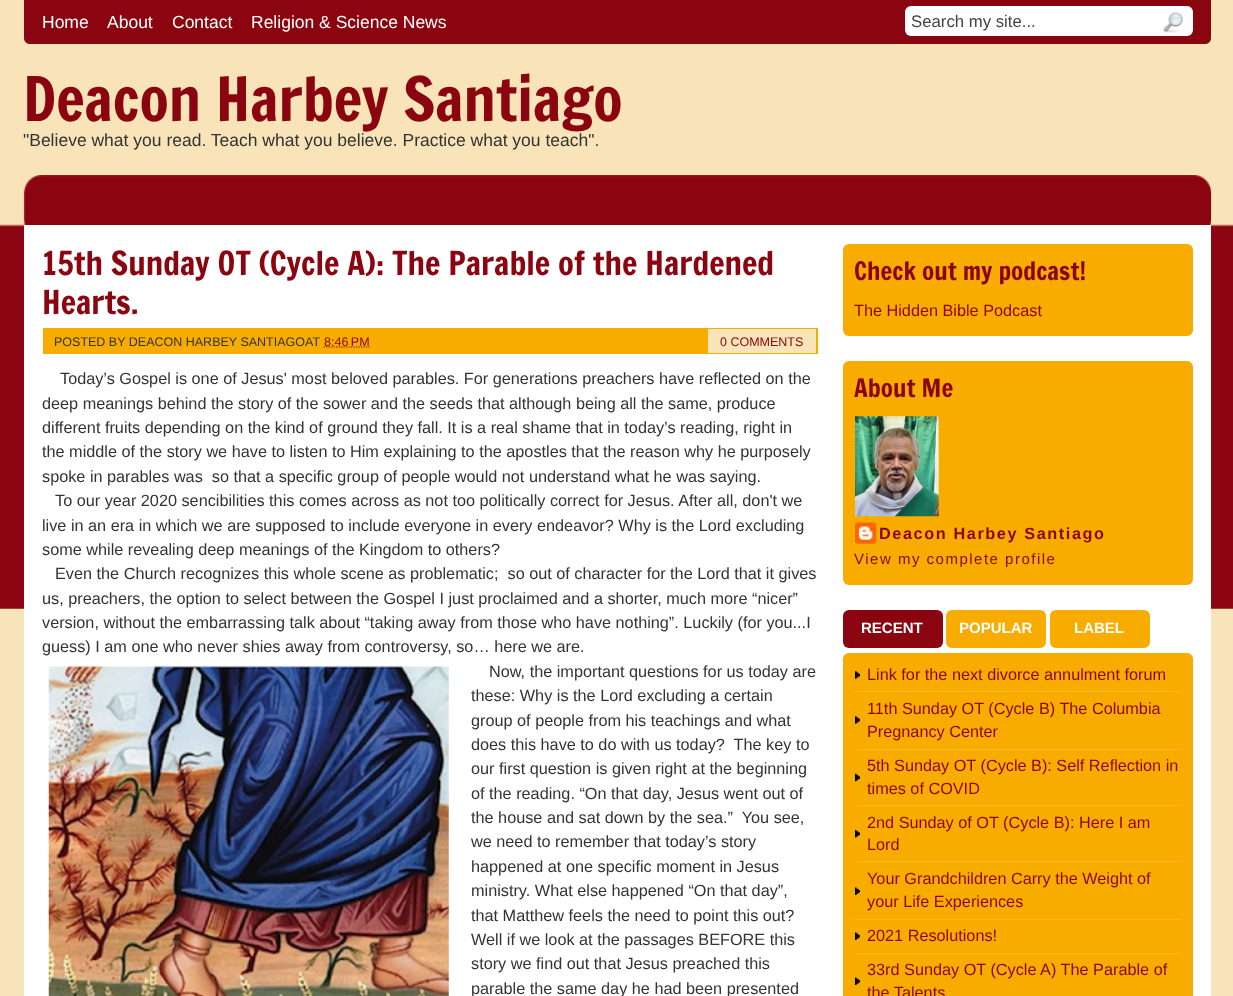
<?xml version="1.0" encoding="UTF-8"?>
<svg xmlns="http://www.w3.org/2000/svg" width="1233" height="996">
    <rect width="100%" height="100%" fill="#F8E4B8"/>
    <image x="0" y="224" width="1233" height="385" href="img_01.png"/>
    <path d="M 24 0 H 1211 V 38 C 1211 41.5 1208.5 44 1205 44 H 30 C 26.5 44 24 41.5 24 38 Z" fill="#8A050F"/>
    <text x="42" y="28" font-family="Liberation Sans" font-size="17.5" fill="#FFFFFF">Home</text>
    <text x="107" y="28" font-family="Liberation Sans" font-size="17.5" fill="#FFFFFF">About</text>
    <text x="172" y="28" font-family="Liberation Sans" font-size="17.5" fill="#FFFFFF">Contact</text>
    <text x="251" y="28" font-family="Liberation Sans" font-size="17.5" fill="#FFFFFF">Religion &amp; Science News</text>
    <rect x="905" y="6" width="288" height="30" rx="6" fill="#FFFFFF"/>
    <text x="911" y="27" font-family="Liberation Sans" font-size="16.75" fill="#444444">Search my site...</text>
    <image x="1163" y="12" width="20" height="21" href="img_02.png"/>
    <text x="23" y="121" font-family="Francois One" font-size="60" fill="#8A050F">Deacon Harbey Santiago</text>
    <text x="23" y="146" font-family="Liberation Sans" font-size="17.5" fill="#333333">"Believe what you read. Teach what you believe. Practice what you teach".</text>
    <image x="23" y="175" width="1189" height="50" href="img_03.png"/>
    <rect x="24" y="225" width="1187" height="771" fill="#FFFFFF"/>
    <text font-family="Francois One" font-size="32.5" fill="#8A050F">
        <tspan x="42" y="275">15th Sunday OT (Cycle A): The Parable of the Hardened</tspan>
        <tspan x="42" y="314">Hearts.</tspan>
    </text>
    <rect x="43" y="328" width="775" height="26" fill="#F8AC00"/>
    <text x="54" y="346" font-family="Liberation Sans" font-size="12.5" fill="#333333">POSTED BY DEACON HARBEY SANTIAGOAT</text>
    <path d="M 323.5 347 H 369.5" fill="none" stroke="#8A050F" stroke-width="1.2" stroke-dasharray="1.25 1.25"/>
    <text x="324" y="346" font-family="Liberation Sans" font-size="12.5" fill="#8A050F">8:46 PM</text>
    <rect x="708" y="329" width="108" height="24" fill="#F8E4B8"/>
    <text x="720" y="346" font-family="Liberation Sans" font-size="12.5" fill="#8A050F">0 COMMENTS</text>
    <text x="60" y="384" font-family="Liberation Sans" font-size="16.25" fill="#333333">Today’s Gospel is one of Jesus' most beloved parables. For generations preachers have reflected on the</text>
    <text font-family="Liberation Sans" font-size="16.25" fill="#333333" xml:space="preserve"><tspan x="42" y="409">deep meanings behind the story of the sower and the seeds that although being all the same, produce</tspan><tspan x="42" y="433">different fruits depending on the kind of ground they fall. It is a real shame that in today’s reading, right in</tspan><tspan x="42" y="457">the middle of the story we have to listen to Him explaining to the apostles that the reason why he purposely</tspan><tspan x="42" y="482">spoke in parables was  so that a specific group of people would not understand what he was saying.</tspan></text>
    <text x="55" y="506" font-family="Liberation Sans" font-size="16.25" fill="#333333">To our year 2020 sencibilities this comes across as not too politically correct for Jesus. After all, don't we</text>
    <text font-family="Liberation Sans" font-size="16.25" fill="#333333">
        <tspan x="42" y="531">live in an era in which we are supposed to include everyone in every endeavor? Why is the Lord excluding</tspan>
        <tspan x="42" y="555">some while revealing deep meanings of the Kingdom to others?</tspan>
    </text>
    <text x="55" y="579" font-family="Liberation Sans" font-size="16.25" fill="#333333" xml:space="preserve">Even the Church recognizes this whole scene as problematic;  so out of character for the Lord that it gives</text>
    <text font-family="Liberation Sans" font-size="16.25" fill="#333333">
        <tspan x="42" y="604">us, preachers, the option to select between the Gospel I just proclaimed and a shorter, much more “nicer”</tspan>
        <tspan x="42" y="628">version, without the embarrassing talk about “taking away from those who have nothing”. Luckily (for you...I</tspan>
        <tspan x="42" y="652">guess) I am one who never shies away from controversy, so… here we are.</tspan>
    </text>
    <image x="48" y="666" width="401" height="330" href="img_04.png"/>
    <text x="489" y="677" font-family="Liberation Sans" font-size="16.25" fill="#333333">Now, the important questions for us today are</text>
    <text font-family="Liberation Sans" font-size="16.25" fill="#333333" xml:space="preserve"><tspan x="471" y="701">these: Why is the Lord excluding a certain</tspan><tspan x="471" y="726">group of people from his teachings and what</tspan><tspan x="471" y="750">does this have to do with us today?  The key to</tspan><tspan x="471" y="774">our first question is given right at the beginning</tspan><tspan x="471" y="799">of the reading. “On that day, Jesus went out of</tspan><tspan x="471" y="823">the house and sat down by the sea.”  You see,</tspan><tspan x="471" y="847">we need to remember that today’s story</tspan><tspan x="471" y="872">happened at one specific moment in Jesus</tspan><tspan x="471" y="896">ministry. What else happened “On that day”,</tspan><tspan x="471" y="921">that Matthew feels the need to point this out?</tspan><tspan x="471" y="945">Well if we look at the passages BEFORE this</tspan><tspan x="471" y="969">story we find out that Jesus preached this</tspan><tspan x="471" y="994">parable the same day he had been presented</tspan></text>
    <rect x="843" y="244" width="350" height="92" rx="6" fill="#F8AC00"/>
    <text x="854" y="280" font-family="Francois One" font-size="25" fill="#8A050F">Check out my podcast!</text>
    <text x="854" y="316" font-family="Liberation Sans" font-size="16.25" fill="#8A050F">The Hidden Bible Podcast</text>
    <rect x="843" y="361" width="350" height="224" rx="6" fill="#F8AC00"/>
    <text x="854" y="397" font-family="Francois One" font-size="25" fill="#8A050F">About Me</text>
    <image x="855" y="416" width="84" height="101" href="img_05.png"/>
    <image x="855" y="522" width="22" height="22" href="img_06.png"/>
    <text x="879" y="539" font-family="Liberation Sans" font-size="16.25" font-weight="700" letter-spacing="1.6" fill="#8A050F">Deacon Harbey Santiago</text>
    <text x="854" y="564" font-family="Liberation Sans" font-size="15" letter-spacing="1.5" fill="#8A050F">View my complete profile</text>
    <rect x="843" y="610" width="100" height="38" rx="6" fill="#8A050F"/>
    <text x="861" y="633" font-family="Liberation Sans" font-size="15" font-weight="700" fill="#FFFFFF">RECENT</text>
    <rect x="946" y="610" width="100" height="38" rx="6" fill="#F8AC00"/>
    <text x="959" y="633" font-family="Liberation Sans" font-size="15" font-weight="700" fill="#FFFFFF">POPULAR</text>
    <rect x="1050" y="610" width="100" height="38" rx="6" fill="#F8AC00"/>
    <text x="1074" y="633" font-family="Liberation Sans" font-size="15" font-weight="700" fill="#FFFFFF">LABEL</text>
    <rect x="843" y="653" width="350" height="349" rx="6" fill="#F8AC00"/>
    <image x="855" y="671" width="5" height="8" href="img_07.png"/>
    <rect x="855" y="691" width="325" height="1" fill="#FCBA20"/>
    <text x="867" y="680" font-family="Liberation Sans" font-size="16.25" fill="#8A050F">Link for the next divorce annulment forum</text>
    <image x="855" y="716" width="5" height="8" href="img_07.png"/>
    <rect x="855" y="749" width="325" height="1" fill="#FCBA20"/>
    <text font-family="Liberation Sans" font-size="16.25" fill="#8A050F">
        <tspan x="867" y="714">11th Sunday OT (Cycle B) The Columbia</tspan>
        <tspan x="867" y="737">Pregnancy Center</tspan>
    </text>
    <image x="855" y="773" width="5" height="9" href="img_08.png"/>
    <rect x="855" y="805" width="325" height="1" fill="#FCBA20"/>
    <text font-family="Liberation Sans" font-size="16.25" fill="#8A050F">
        <tspan x="867" y="771">5th Sunday OT (Cycle B): Self Reflection in</tspan>
        <tspan x="867" y="794">times of COVID</tspan>
    </text>
    <image x="855" y="830" width="5" height="8" href="img_09.png"/>
    <rect x="855" y="861" width="325" height="1" fill="#FCBA20"/>
    <text font-family="Liberation Sans" font-size="16.25" fill="#8A050F">
        <tspan x="867" y="828">2nd Sunday of OT (Cycle B): Here I am</tspan>
        <tspan x="867" y="850">Lord</tspan>
    </text>
    <image x="855" y="887" width="5" height="8" href="img_10.png"/>
    <rect x="855" y="919" width="325" height="1" fill="#FCBA20"/>
    <text font-family="Liberation Sans" font-size="16.25" fill="#8A050F">
        <tspan x="867" y="884">Your Grandchildren Carry the Weight of</tspan>
        <tspan x="867" y="907">your Life Experiences</tspan>
    </text>
    <image x="855" y="932" width="5" height="8" href="img_10.png"/>
    <rect x="855" y="953" width="325" height="1" fill="#FCBA20"/>
    <text x="867" y="941" font-family="Liberation Sans" font-size="16.25" fill="#8A050F">2021 Resolutions!</text>
    <image x="855" y="977" width="5" height="8" href="img_10.png"/>
    <text font-family="Liberation Sans" font-size="16.25" fill="#8A050F">
        <tspan x="867" y="975">33rd Sunday OT (Cycle A) The Parable of</tspan>
        <tspan x="867" y="998">the Talents</tspan>
    </text>
</svg>
